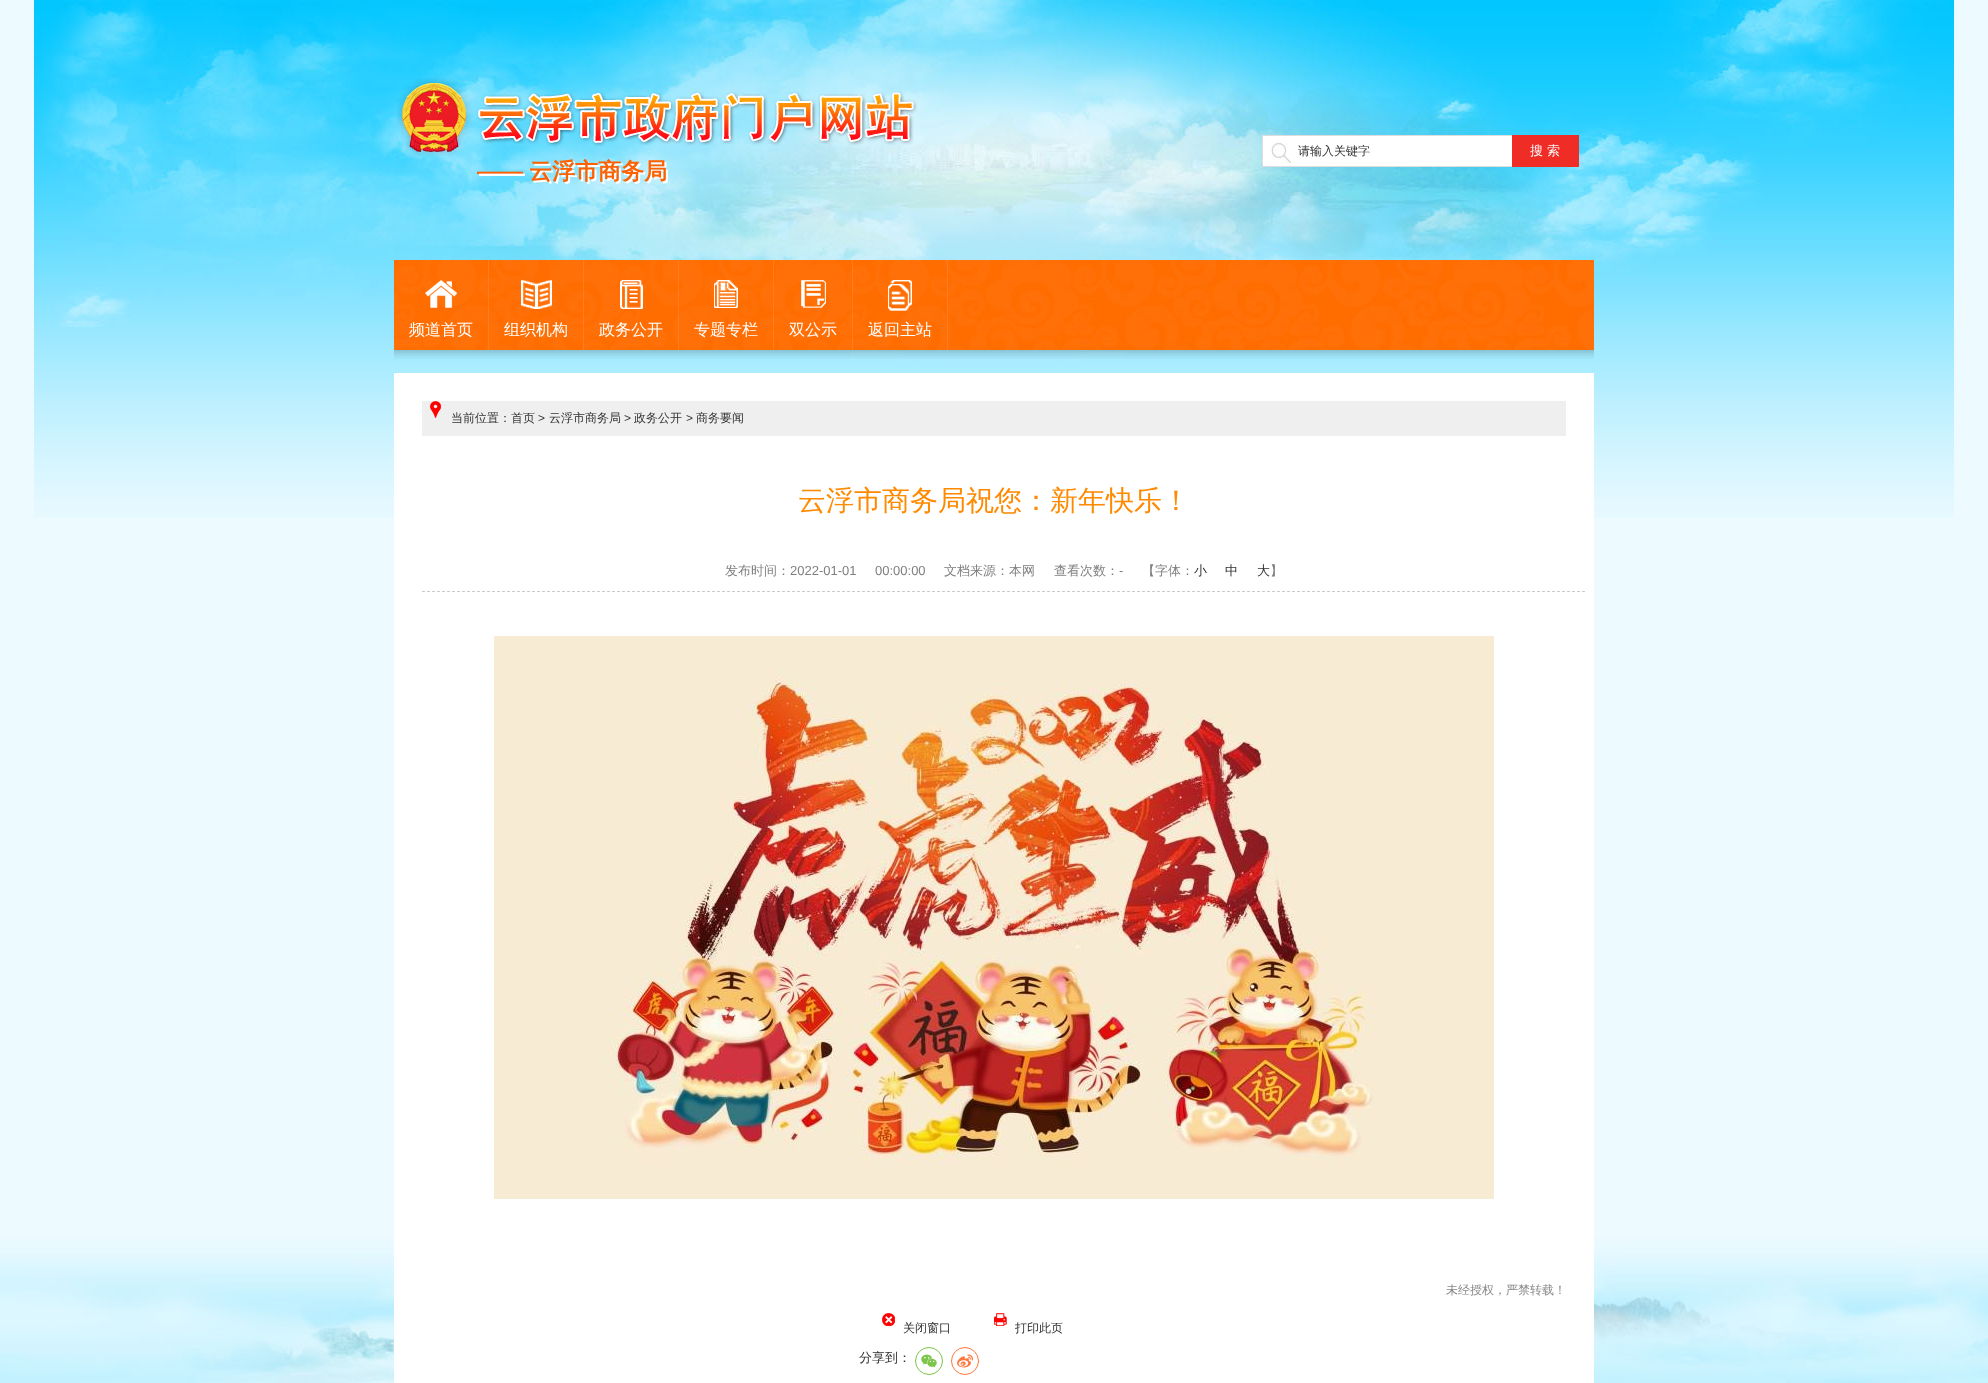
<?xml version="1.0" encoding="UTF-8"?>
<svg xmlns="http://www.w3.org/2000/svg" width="1988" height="1383">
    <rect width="100%" height="100%" fill="#EDFAFF"/>
    <image x="34" y="0" width="1920" height="518" href="img_01.png"/>
    <rect x="1263" y="136" width="249" height="30" fill="#FFFFFF"/>
    <image x="1271" y="142" width="20" height="21" href="img_02.png"/>
    <rect x="1262" y="135" width="252" height="1" fill="#DDDDDD"/>
    <rect x="1262" y="166" width="252" height="1" fill="#DDDDDD"/>
    <rect x="1262" y="135" width="1" height="32" fill="#DDDDDD"/>
    <text x="1298" y="155" font-family="WenQuanYi Zen Hei" font-size="12" font-weight="500" fill="#323232">请输入关键字</text>
    <rect x="1512" y="135" width="67" height="32" fill="#F02C27"/>
    <text x="1530" y="155" font-family="WenQuanYi Zen Hei" font-size="13" font-weight="500" fill="#FFFFFF">搜 索</text>
    <image x="397" y="78" width="520" height="78" href="img_03.png"/>
    <text x="477" y="179" font-family="Liberation Sans" font-size="23" font-weight="700" fill="#FF6000">——</text>
    <text x="531" y="181" font-family="WenQuanYi Zen Hei" font-size="23" font-weight="700" fill="#FFFFFF">云浮市商务局</text>
    <text x="529" y="179" font-family="WenQuanYi Zen Hei" font-size="23" font-weight="700" fill="#FF6000">云浮市商务局</text>
    <text x="479" y="181" font-family="Liberation Sans" font-size="23" font-weight="700" fill="#FFFFFF">——</text>
    <image x="394" y="260" width="1200" height="90" href="img_04.png"/>
    <image x="425" y="280" width="32" height="28" href="img_05.png"/>
    <rect x="488" y="260" width="1" height="90" fill="#FF7D1D"/>
    <text x="409" y="335" font-family="WenQuanYi Zen Hei" font-size="16" font-weight="500" fill="#FFFFFF">频道首页</text>
    <image x="521" y="280" width="31" height="29" href="img_06.png"/>
    <rect x="583" y="260" width="1" height="90" fill="#FF7D1D"/>
    <text x="504" y="335" font-family="WenQuanYi Zen Hei" font-size="16" font-weight="500" fill="#FFFFFF">组织机构</text>
    <image x="620" y="280" width="23" height="29" href="img_07.png"/>
    <rect x="678" y="260" width="1" height="90" fill="#FF7D1D"/>
    <text x="599" y="335" font-family="WenQuanYi Zen Hei" font-size="16" font-weight="500" fill="#FFFFFF">政务公开</text>
    <image x="714" y="280" width="24" height="28" href="img_08.png"/>
    <rect x="773" y="260" width="1" height="90" fill="#FF7D1D"/>
    <text x="694" y="335" font-family="WenQuanYi Zen Hei" font-size="16" font-weight="500" fill="#FFFFFF">专题专栏</text>
    <image x="801" y="280" width="25" height="28" href="img_09.png"/>
    <rect x="852" y="260" width="1" height="90" fill="#FF7D1D"/>
    <text x="789" y="335" font-family="WenQuanYi Zen Hei" font-size="16" font-weight="500" fill="#FFFFFF">双公示</text>
    <image x="888" y="280" width="24" height="31" href="img_10.png"/>
    <rect x="947" y="260" width="1" height="90" fill="#FF7D1D"/>
    <text x="868" y="335" font-family="WenQuanYi Zen Hei" font-size="16" font-weight="500" fill="#FFFFFF">返回主站</text>
    <image x="394" y="350" width="1200" height="9" href="img_11.png"/>
    <image x="0" y="1237" width="1988" height="146" href="img_18.png"/>
    <rect x="394" y="373" width="1200" height="1010" fill="#FFFFFF"/>
    <rect x="422" y="401" width="1144" height="35" fill="#EFEFEF"/>
    <image x="430" y="401" width="11" height="17" href="img_12.png"/>
    <text x="451" y="422" font-family="WenQuanYi Zen Hei" font-size="12" font-weight="500" fill="#323232">当前位置：首页</text>
    <text x="538" y="422" font-family="Liberation Sans" font-size="12" fill="#323232">&gt;</text>
    <text x="549" y="422" font-family="WenQuanYi Zen Hei" font-size="12" font-weight="500" fill="#323232">云浮市商务局</text>
    <text x="624" y="422" font-family="Liberation Sans" font-size="12" fill="#323232">&gt;</text>
    <text x="634" y="422" font-family="WenQuanYi Zen Hei" font-size="12" font-weight="500" fill="#323232">政务公开</text>
    <text x="686" y="422" font-family="Liberation Sans" font-size="12" fill="#323232">&gt;</text>
    <text x="696" y="422" font-family="WenQuanYi Zen Hei" font-size="12" font-weight="500" fill="#323232">商务要闻</text>
    <text x="798" y="510" font-family="WenQuanYi Zen Hei" font-size="28" font-weight="500" fill="#FF8A00">云浮市商务局祝您：新年快乐！</text>
    <path d="M 422 591.5 H 1586" fill="none" stroke="#CCCCCC" stroke-dasharray="3 2"/>
    <text x="725" y="575" font-family="WenQuanYi Zen Hei" font-size="13" font-weight="500" fill="#7F7F7F">发布时间：</text>
    <text x="790" y="575" font-family="Liberation Sans" font-size="13" fill="#7F7F7F">2022-01-01</text>
    <text x="875" y="575" font-family="Liberation Sans" font-size="13" fill="#7F7F7F">00:00:00</text>
    <text x="944" y="575" font-family="WenQuanYi Zen Hei" font-size="13" font-weight="500" fill="#7F7F7F">文档来源：本网</text>
    <text x="1054" y="575" font-family="WenQuanYi Zen Hei" font-size="13" font-weight="500" fill="#7F7F7F">查看次数：</text>
    <text x="1119" y="575" font-family="Liberation Sans" font-size="13" fill="#7F7F7F">-</text>
    <text x="1142" y="575" font-family="WenQuanYi Zen Hei" font-size="13" font-weight="500" fill="#7F7F7F">【字体：</text>
    <text x="1194" y="575" font-family="WenQuanYi Zen Hei" font-size="13" font-weight="500" fill="#323232">小</text>
    <text x="1225" y="575" font-family="WenQuanYi Zen Hei" font-size="13" font-weight="500" fill="#323232">中</text>
    <text x="1257" y="575" font-family="WenQuanYi Zen Hei" font-size="13" font-weight="500" fill="#323232">大</text>
    <text x="1270" y="575" font-family="WenQuanYi Zen Hei" font-size="13" font-weight="500" fill="#7F7F7F">】</text>
    <image x="494" y="636" width="1000" height="563" href="img_13.png"/>
    <text x="1446" y="1294" font-family="WenQuanYi Zen Hei" font-size="12" font-weight="500" fill="#878787">未经授权，严禁转载！</text>
    <image x="882" y="1313" width="13" height="13" href="img_14.png"/>
    <text x="903" y="1332" font-family="WenQuanYi Zen Hei" font-size="12" font-weight="500" fill="#323232">关闭窗口</text>
    <image x="994" y="1313" width="13" height="13" href="img_15.png"/>
    <text x="1015" y="1332" font-family="WenQuanYi Zen Hei" font-size="12" font-weight="500" fill="#323232">打印此页</text>
    <text x="859" y="1362" font-family="WenQuanYi Zen Hei" font-size="13" font-weight="500" fill="#323232">分享到：</text>
    <circle cx="929" cy="1361" r="13.5" fill="none" stroke="#7BC549"/>
    <image x="921" y="1354" width="16" height="14" href="img_16.png"/>
    <circle cx="965" cy="1361" r="13.5" fill="none" stroke="#FF763B"/>
    <image x="957" y="1354" width="16" height="14" href="img_17.png"/>
</svg>
